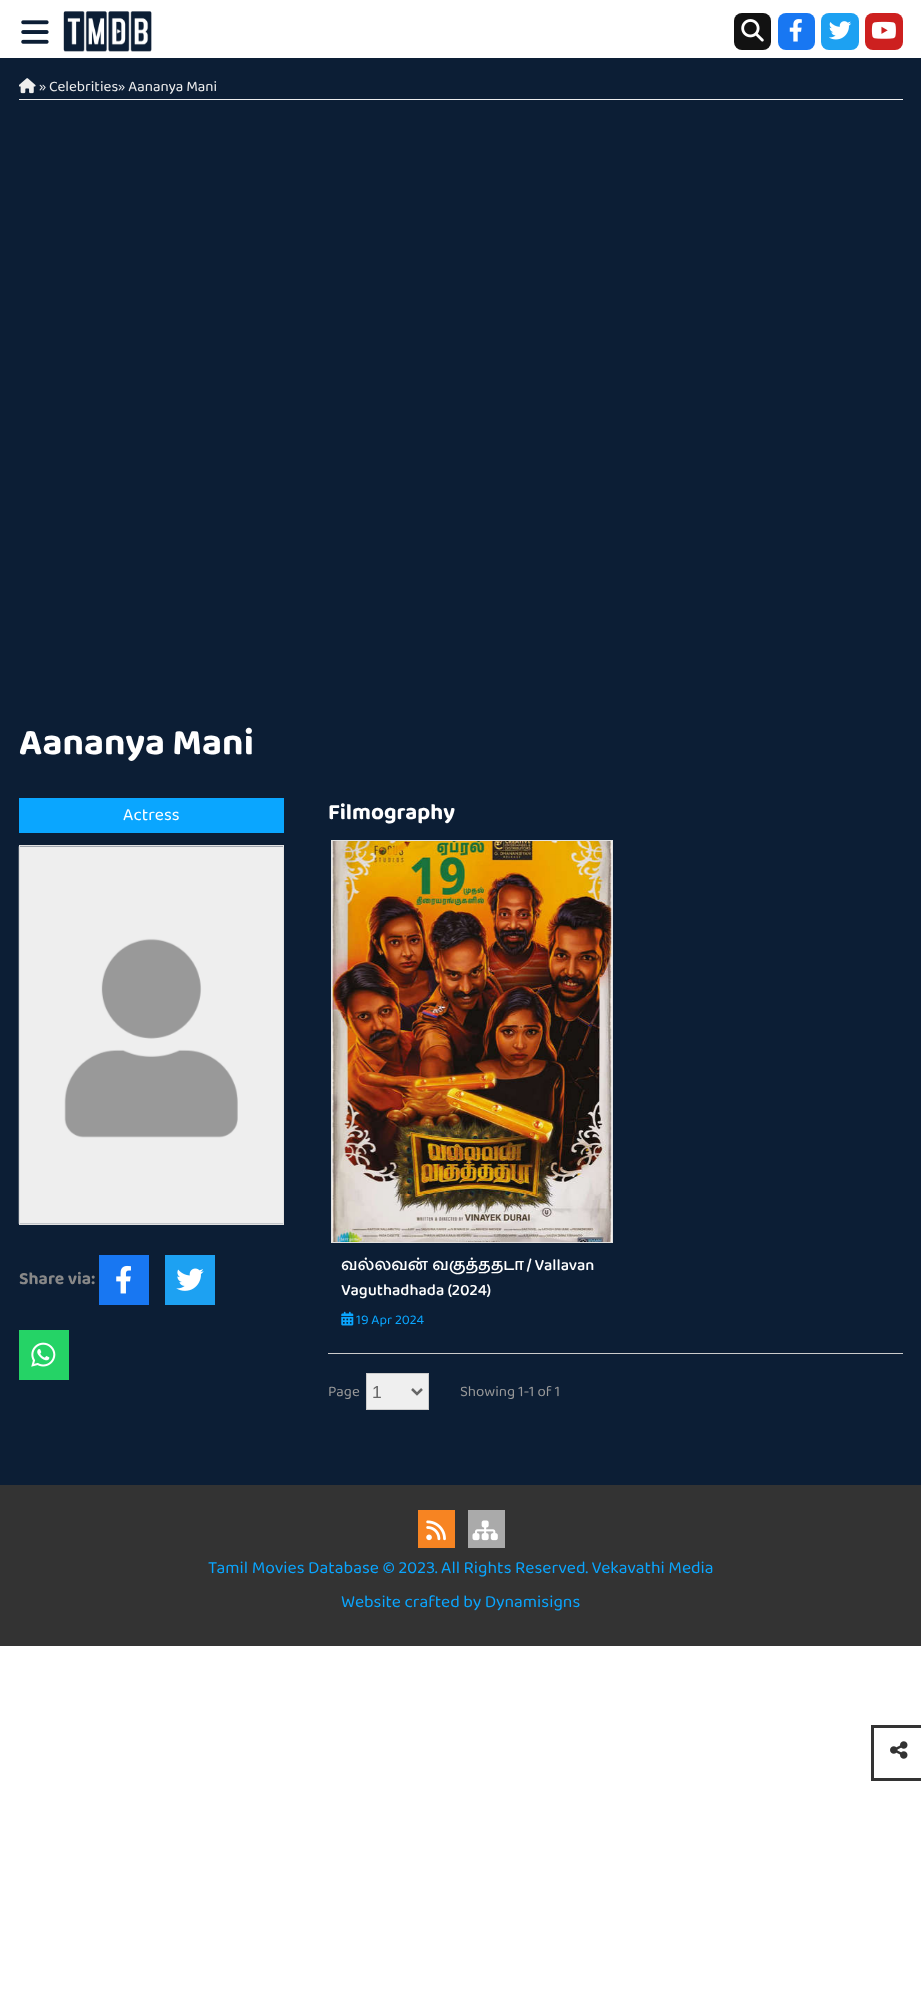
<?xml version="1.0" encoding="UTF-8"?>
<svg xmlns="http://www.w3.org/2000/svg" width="921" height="2004">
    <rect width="100%" height="100%" fill="#FFFFFF"/>
    <rect x="0" y="58" width="921" height="1427" fill="#0C1E35"/>
    <image x="21" y="20" width="28" height="24" href="img_01.png"/>
    <image x="63" y="11" width="89" height="41" href="img_02.png"/>
    <rect x="734" y="13" width="37" height="37" rx="8" fill="#121212"/>
    <image x="741" y="19" width="23" height="23" href="img_03.png"/>
    <rect x="778" y="13" width="37" height="37" rx="8" fill="#1877F2"/>
    <image x="789" y="19" width="13" height="23" href="img_04.png"/>
    <rect x="821" y="13" width="38" height="37" rx="8" fill="#1DA1F2"/>
    <image x="829" y="21" width="23" height="19" href="img_05.png"/>
    <rect x="865" y="13" width="38" height="37" rx="8" fill="#CD201F"/>
    <image x="871" y="21" width="25" height="18" href="img_06.png"/>
    <rect x="19" y="99" width="884" height="1" fill="#EEEEEE"/>
    <image x="19" y="78" width="17" height="16" href="img_07.png"/>
    <text x="39" y="91" font-family="'Baloo Thambi 2'" font-size="15" fill="#EEEEEE">» Celebrities» Aananya Mani</text>
    <text x="19" y="754" font-family="'Baloo Thambi 2'" font-size="37.5" font-weight="700" fill="#FFFFFF">Aananya Mani</text>
    <rect x="19" y="798" width="265" height="35" fill="#0AA6FF"/>
    <text x="123" y="820" font-family="'Baloo Thambi 2'" font-size="17.5" fill="#FFFFFF">Actress</text>
    <image x="18" y="846" width="265" height="378" href="img_08.png"/>
    <rect x="19.5" y="845.5" width="264" height="379" fill="none" stroke="#E2E2E2"/>
    <text x="19" y="1284" font-family="'Baloo Thambi 2'" font-size="17.5" font-weight="700" fill="#888888">Share via:</text>
    <rect x="99" y="1255" width="50" height="50" fill="#1877F2"/>
    <image x="116" y="1265" width="15" height="29" href="img_09.png"/>
    <rect x="165" y="1255" width="50" height="50" fill="#1DA1F2"/>
    <image x="176" y="1268" width="28" height="23" href="img_10.png"/>
    <rect x="19" y="1330" width="50" height="50" fill="#25D366"/>
    <image x="31" y="1342" width="25" height="25" href="img_11.png"/>
    <text x="328" y="819" font-family="'Baloo Thambi 2'" font-size="22.5" font-weight="700" fill="#FFFFFF">Filmography</text>
    <rect x="332" y="841" width="280" height="401" fill="#FFFFFF"/>
    <image x="332" y="841" width="280" height="401" href="img_12.png"/>
    <rect x="331.5" y="840.5" width="281" height="402" fill="none" stroke="#E2E2E2"/>
    <text font-family="'Baloo Thambi 2'" font-size="16.25" font-weight="500" fill="#FFFFFF">
        <tspan x="341" y="1270" word-spacing="-0.5">வல்லவன் வகுத்ததடா / Vallavan</tspan>
        <tspan x="341" y="1295">Vaguthadhada (2024)</tspan>
    </text>
    <image x="341" y="1311" width="13" height="15" href="img_13.png"/>
    <text x="356" y="1324" font-family="'Baloo Thambi 2'" font-size="13.75" fill="#0AA6FF">19 Apr 2024</text>
    <rect x="328" y="1353" width="575" height="1" fill="#CCCCCC"/>
    <text x="328" y="1396" font-family="'Baloo Thambi 2'" font-size="15" fill="#999999">Page</text>
    <rect x="366.5" y="1373.5" width="62" height="36" fill="#EFEFEF" stroke="#CCCCCC"/>
    <path d="M 412 1389 L 417 1394 L 422 1389" fill="none" stroke="#666666" stroke-width="2.5"/>
    <text x="372" y="1398" font-family="Liberation Sans" font-size="17.5" fill="#666666">1</text>
    <text x="460" y="1396" font-family="'Baloo Thambi 2'" font-size="15" fill="#999999">Showing 1-1 of 1</text>
    <rect x="0" y="1485" width="921" height="161" fill="#333333"/>
    <rect x="418" y="1510" width="37" height="38" fill="#F78422"/>
    <image x="426" y="1520" width="20" height="21" href="img_14.png"/>
    <rect x="468" y="1510" width="37" height="38" fill="#AAAAAA"/>
    <image x="472" y="1520" width="26" height="21" href="img_15.png"/>
    <text x="208" y="1573" font-family="'Baloo Thambi 2'" font-size="17.5" fill="#0AA6FF">Tamil Movies Database © 2023. All Rights Reserved. Vekavathi Media</text>
    <text x="341" y="1607" font-family="'Baloo Thambi 2'" font-size="17.5" fill="#0AA6FF">Website crafted by Dynamisigns</text>
    <rect x="871" y="1725" width="50" height="3" fill="#333333"/>
    <rect x="871" y="1778" width="50" height="3" fill="#333333"/>
    <rect x="871" y="1725" width="3" height="55" fill="#333333"/>
    <image x="890" y="1741" width="18" height="18" href="img_16.png"/>
</svg>
